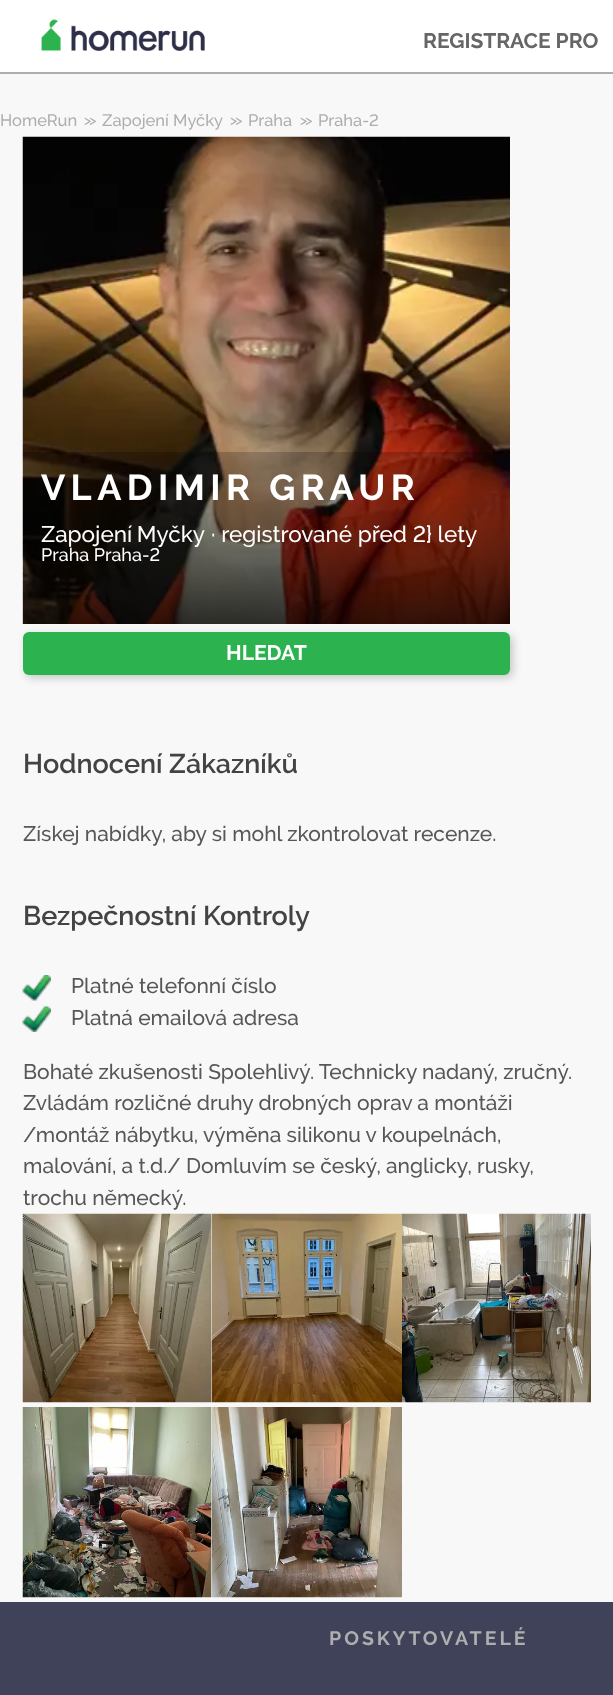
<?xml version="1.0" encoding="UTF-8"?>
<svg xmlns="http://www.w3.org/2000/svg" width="613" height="1695">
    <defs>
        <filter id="blur1" x="-50%" y="-200%" width="200%" height="500%"><feGaussianBlur stdDeviation="4"/></filter>
    </defs>
    <rect width="100%" height="100%" fill="#F8F8F8"/>
    <rect x="0" y="0" width="613" height="72" fill="#FFFFFF"/>
    <rect x="0" y="72" width="613" height="2" fill="#AEAEAE"/>
    <image x="41" y="19" width="164" height="32" href="img_01.png"/>
    <text x="423" y="48" font-family="Raleway" font-size="21" font-weight="700" fill="#666666">REGISTRACE PRO</text>
    <text x="0" y="126" font-family="Raleway" font-size="16.5" font-weight="500" fill="#AEAEAE">HomeRun</text>
    <text x="84" y="125" font-family="Raleway" font-size="14" font-weight="500" letter-spacing="-2" fill="#AEAEAE">&gt;&gt;</text>
    <text x="102" y="126" font-family="Raleway" font-size="16.5" font-weight="500" fill="#AEAEAE">Zapojení Myčky</text>
    <text x="230" y="125" font-family="Raleway" font-size="14" font-weight="500" letter-spacing="-2" fill="#AEAEAE">&gt;&gt;</text>
    <text x="248" y="126" font-family="Raleway" font-size="16.5" font-weight="500" fill="#AEAEAE">Praha</text>
    <text x="300" y="125" font-family="Raleway" font-size="14" font-weight="500" letter-spacing="-2" fill="#AEAEAE">&gt;&gt;</text>
    <text x="318" y="126" font-family="Raleway" font-size="16.5" font-weight="500" fill="#AEAEAE">Praha-2</text>
    <image x="22" y="136" width="488" height="488" href="img_02.png"/>
    <text x="41" y="500" font-family="Raleway" font-size="36" font-weight="700" letter-spacing="5.4" fill="#FFFFFF">VLADIMIR GRAUR</text>
    <text x="41" y="542" word-spacing="-1" font-family="Raleway" font-size="22.5" font-weight="500" fill="#FFFFFF">Zapojení Myčky</text>
    <text x="211" y="542" font-family="Raleway" font-size="22.5" font-weight="500" fill="#FFFFFF">· registrované před 2} lety</text>
    <text x="41" y="561" font-family="Raleway" font-size="18" font-weight="500" fill="#FFFFFF">Praha Praha-2</text>
    <rect x="26" y="635" width="487" height="43" rx="6" fill="#000000" fill-opacity="0.2" filter="url(#blur1)"/>
    <rect x="23" y="632" width="487" height="43" rx="6" fill="#2CB34F"/>
    <text x="226" y="660" font-family="Raleway" font-size="21" font-weight="700" fill="#FFFFFF">HLEDAT</text>
    <text x="23" y="773" font-family="Raleway" font-size="27" font-weight="600" fill="#434343">Hodnocení Zákazníků</text>
    <text x="23" y="841" font-family="Raleway" font-size="21" font-weight="500" fill="#575757">Získej nabídky, aby si mohl zkontrolovat recenze.</text>
    <text x="23" y="925" font-family="Raleway" font-size="27" font-weight="600" fill="#434343">Bezpečnostní Kontroly</text>
    <image x="22" y="975" width="29" height="26" href="img_03.png"/>
    <text x="71" y="993" font-family="Raleway" font-size="21" font-weight="500" fill="#575757">Platné telefonní číslo</text>
    <image x="22" y="1006" width="29" height="26" href="img_04.png"/>
    <text x="71" y="1025" font-family="Raleway" font-size="21" font-weight="500" fill="#575757">Platná emailová adresa</text>
    <text font-family="Raleway" font-size="21" font-weight="500" fill="#575757">
        <tspan x="23" y="1079">Bohaté zkušenosti Spolehlivý. Technicky nadaný, zručný.</tspan>
        <tspan x="23" y="1110">Zvládám rozličné druhy drobných oprav a montáži</tspan>
        <tspan x="23" y="1142">/montáž nábytku, výměna silikonu v koupelnách,</tspan>
        <tspan x="23" y="1173">malování, a t.d./ Domluvím se český, anglicky, rusky,</tspan>
        <tspan x="23" y="1205">trochu německý.</tspan>
    </text>
    <image x="22" y="1213" width="190" height="190" href="img_05.png"/>
    <image x="211" y="1213" width="191" height="190" href="img_06.png"/>
    <image x="402" y="1213" width="189" height="190" href="img_07.png"/>
    <image x="22" y="1407" width="190" height="191" href="img_08.png"/>
    <image x="211" y="1407" width="191" height="191" href="img_09.png"/>
    <rect x="0" y="1602" width="613" height="93" fill="#404259"/>
    <text x="329" y="1645" font-family="Raleway" font-size="19.5" font-weight="700" letter-spacing="3" fill="#AEAEAE">POSKYTOVATELÉ</text>
</svg>
